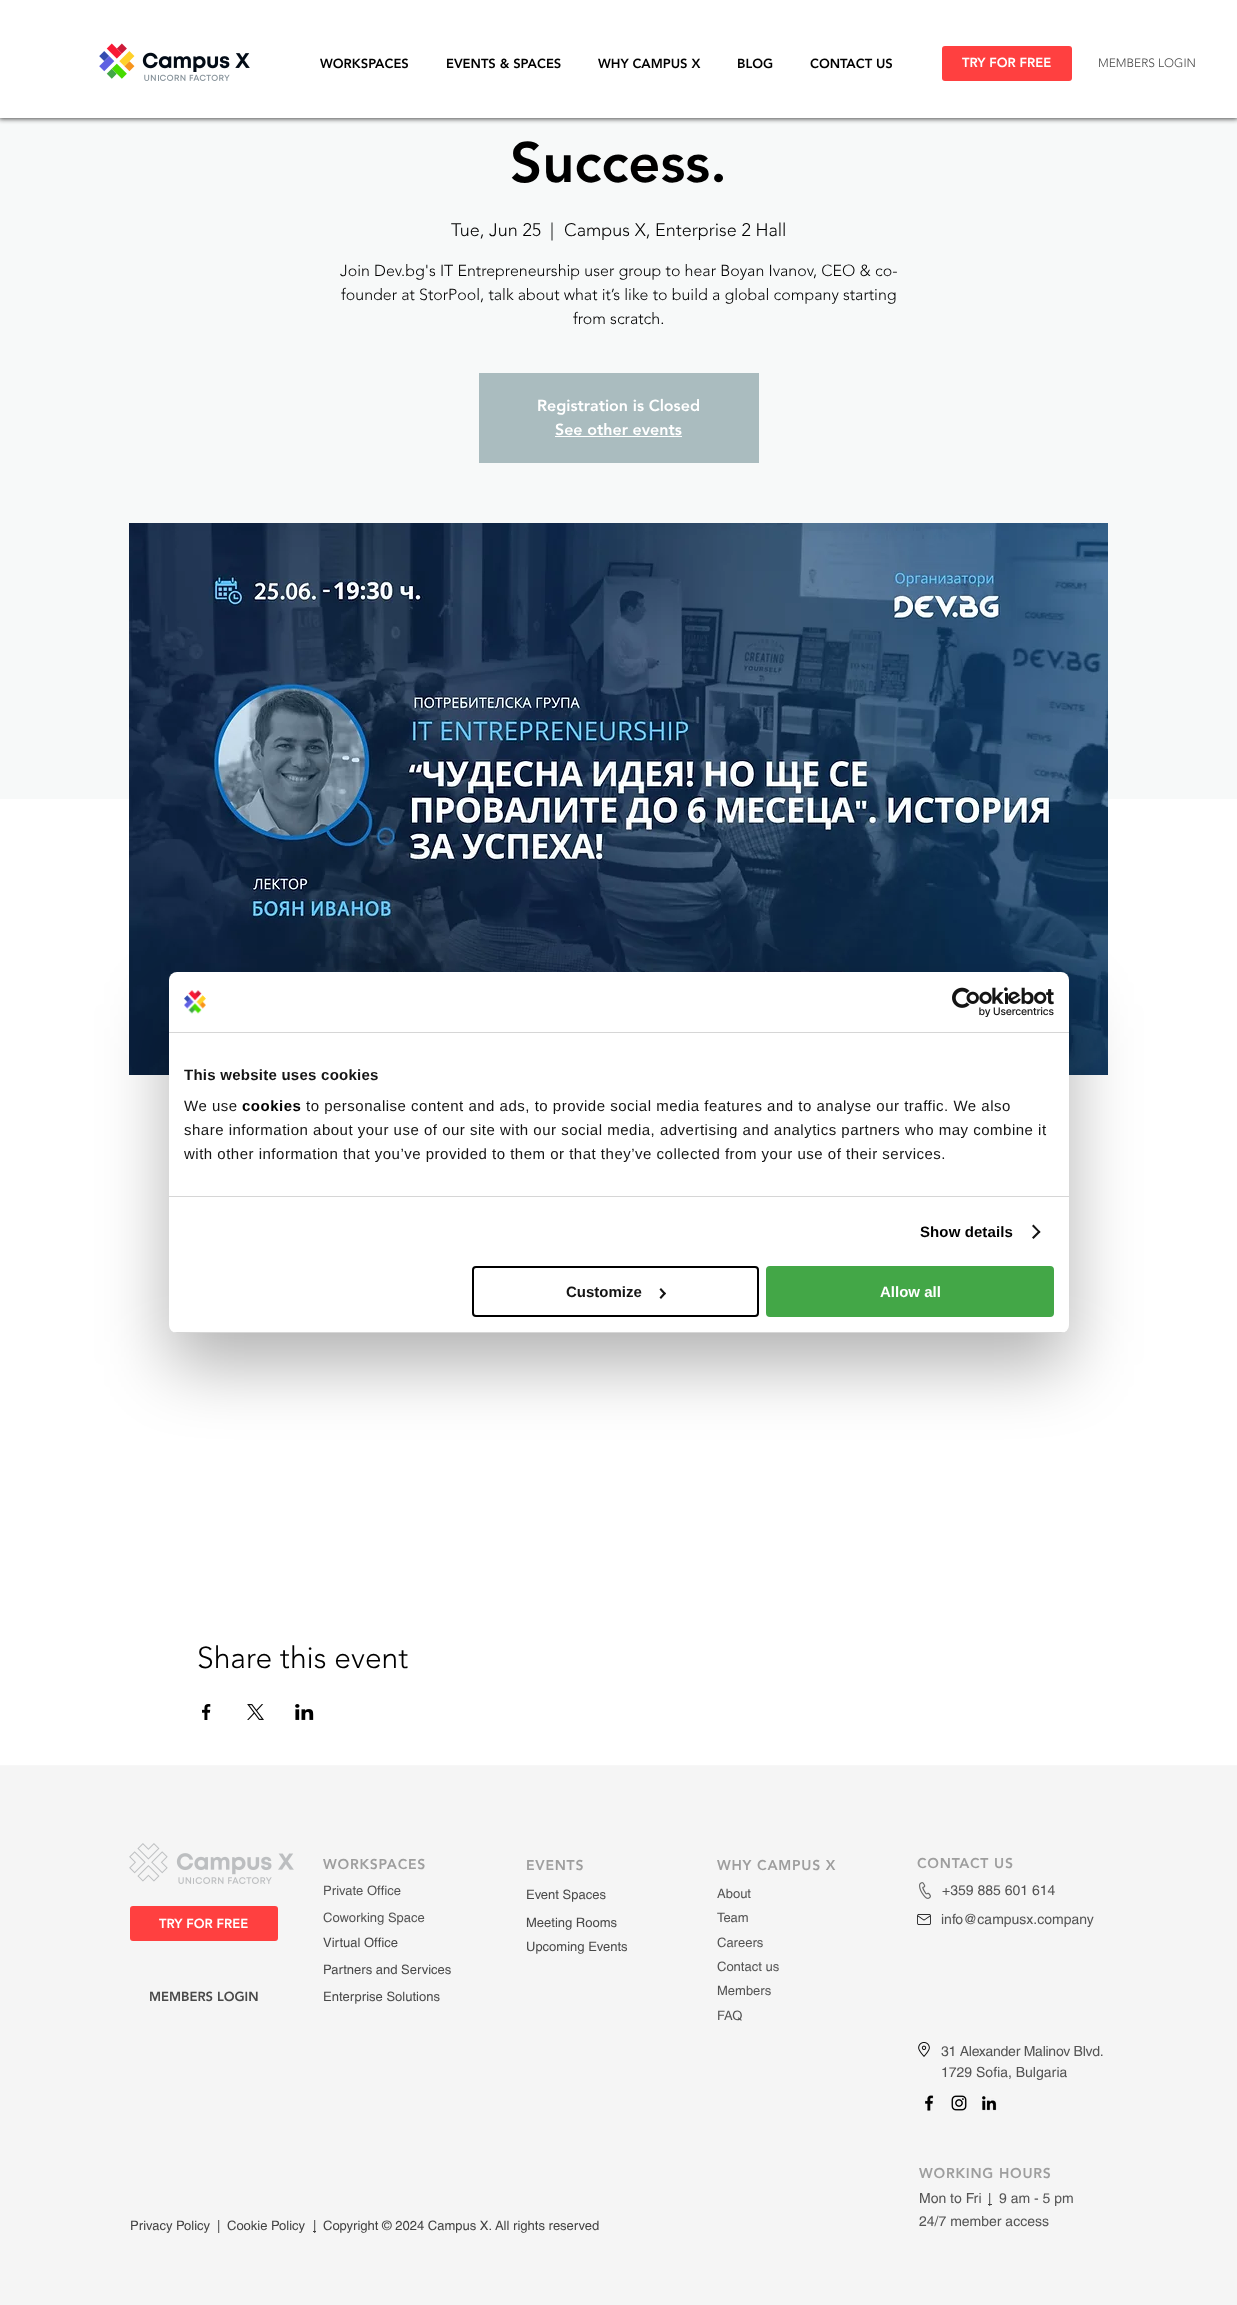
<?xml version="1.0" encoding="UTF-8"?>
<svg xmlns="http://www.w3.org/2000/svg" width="1237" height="2305">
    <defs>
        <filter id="blur1" x="-50%" y="-200%" width="200%" height="500%"><feGaussianBlur stdDeviation="2.5"/></filter>
        <filter id="blur2" x="-50%" y="-200%" width="200%" height="500%"><feGaussianBlur stdDeviation="34"/></filter>
        <clipPath id="clip1"><rect x="169" y="972" width="900" height="361" rx="8"/></clipPath>
    </defs>
    <rect width="100%" height="100%" fill="#FFFFFF"/>
    <rect x="0" y="118" width="1237" height="681" fill="#F7F9F9"/>
    <rect x="-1" y="-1" width="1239" height="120" fill="#000000" fill-opacity="0.7" filter="url(#blur1)"/>
    <rect x="0" y="0" width="1237" height="118" fill="#FFFFFF"/>
    <image x="99" y="43" width="151" height="38" href="img_01.png"/>
    <text x="320" y="68" font-family="'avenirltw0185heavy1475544'" font-size="13" font-weight="900" fill="#000000">WORKSPACES</text>
    <text x="446" y="68" font-family="'avenirltw0185heavy1475544'" font-size="13" font-weight="900" fill="#000000">EVENTS &amp; SPACES</text>
    <text x="598" y="68" font-family="'avenirltw0185heavy1475544'" font-size="13" font-weight="900" fill="#000000">WHY CAMPUS X</text>
    <text x="737" y="68" font-family="'avenirltw0185heavy1475544'" font-size="13" font-weight="900" fill="#000000">BLOG</text>
    <text x="810" y="68" font-family="'avenirltw0185heavy1475544'" font-size="13" font-weight="900" fill="#000000">CONTACT US</text>
    <rect x="942" y="46" width="130" height="35" rx="3" fill="#FF4040"/>
    <text x="962" y="67" font-family="'avenirltw0185heavy1475544'" font-size="13" font-weight="900" fill="#FFFFFF">TRY FOR FREE</text>
    <text x="1098" y="67" font-family="'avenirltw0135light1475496'" font-size="12" font-weight="300" fill="#494949">MEMBERS LOGIN</text>
    <text x="510" y="182" font-family="'avenirltw0185heavy1475544'" font-size="56" font-weight="900" fill="#000000">Success.</text>
    <text x="451" y="236" font-family="'avenirltw0135light1475496'" font-size="18" font-weight="300" fill="#000000">Tue, Jun 25</text>
    <text x="550" y="236" font-family="'avenirltw0135light1475496'" font-size="18" font-weight="300" fill="#000000">|</text>
    <text x="564" y="236" font-family="'avenirltw0135light1475496'" font-size="18" font-weight="300" fill="#000000">Campus X, Enterprise 2 Hall</text>
    <text x="340" y="276" font-family="'avenirltw0135light1475496'" font-size="16" font-weight="300" fill="#000000">Join Dev.bg's IT Entrepreneurship user group to hear Boyan Ivanov, CEO &amp; co-</text>
    <text x="341" y="300" font-family="'avenirltw0135light1475496'" font-size="16" font-weight="300" fill="#000000">founder at StorPool, talk about what it’s like to build a global company starting</text>
    <text x="573" y="324" font-family="'avenirltw0135light1475496'" font-size="16" font-weight="300" fill="#000000">from scratch.</text>
    <rect x="479" y="373" width="280" height="90" fill="#AABCBF"/>
    <text x="537" y="411" font-family="'avenirltw0185heavy1475544'" font-size="16" font-weight="900" fill="#FFFFFF">Registration is Closed</text>
    <text x="555" y="435" font-family="'avenirltw0185heavy1475544'" font-size="16" font-weight="900" fill="#FFFFFF">See other events</text>
    <rect x="555" y="436" width="127" height="1" fill="#FFFFFF"/>
    <image x="129" y="523" width="979" height="552" href="img_02.png"/>
    <text x="197" y="1668" font-family="'avenirltw0135light1475496'" font-size="30" font-weight="300" fill="#000000">Share this event</text>
    <image x="202" y="1704" width="9" height="16" href="img_03.png"/>
    <image x="247" y="1704" width="17" height="16" href="img_04.png"/>
    <image x="295" y="1704" width="19" height="16" href="img_05.png"/>
    <rect x="0" y="1766" width="1237" height="539" fill="#F5F5F5"/>
    <rect x="0" y="1765" width="1237" height="1" fill="#F7F7F7"/>
    <image x="129" y="1843" width="165" height="41" href="img_06.png"/>
    <text x="323" y="1869" font-family="'avenirltw0185heavy1475544'" font-size="14" font-weight="900" letter-spacing="0.75" fill="#9E9E9E">WORKSPACES</text>
    <text x="323" y="1895" font-family="helvetica" font-size="13" fill="#545454">Private Office</text>
    <text x="323" y="1922" font-family="helvetica" font-size="13" fill="#545454">Coworking Space</text>
    <text x="323" y="1947" font-family="helvetica" font-size="13" fill="#494949">Virtual Office</text>
    <text x="323" y="1974" font-family="helvetica" font-size="13" fill="#494949">Partners and Services</text>
    <text x="323" y="2001" font-family="helvetica" font-size="13" fill="#494949">Enterprise Solutions</text>
    <text x="526" y="1870" font-family="'avenirltw0185heavy1475544'" font-size="14" font-weight="900" letter-spacing="0.75" fill="#9E9E9E">EVENTS</text>
    <text x="526" y="1899" font-family="helvetica" font-size="13" fill="#494949">Event Spaces</text>
    <text font-family="helvetica" font-size="13" fill="#494949">
        <tspan x="526" y="1927">Meeting Rooms</tspan>
        <tspan x="526" y="1951">Upcoming Events</tspan>
    </text>
    <text x="717" y="1870" font-family="'avenirltw0185heavy1475544'" font-size="14" font-weight="900" letter-spacing="0.75" fill="#9E9E9E">WHY CAMPUS X</text>
    <text font-family="helvetica" font-size="13" fill="#545454">
        <tspan x="717" y="1898">About</tspan>
        <tspan x="717" y="1922">Team</tspan>
        <tspan x="717" y="1947">Careers</tspan>
        <tspan x="717" y="1971">Contact us</tspan>
        <tspan x="717" y="1995">Members</tspan>
        <tspan x="717" y="2020">FAQ</tspan>
    </text>
    <text x="917" y="1868" font-family="'avenirltw0185heavy1475544'" font-size="14" font-weight="900" letter-spacing="0.75" fill="#9E9E9E">CONTACT US</text>
    <image x="919" y="1882" width="12" height="17" href="img_07.png"/>
    <text x="942" y="1895" font-family="helvetica" font-size="14" fill="#545454">+359 885 601 614</text>
    <rect x="130" y="1906" width="148" height="35" rx="3" fill="#FF4040"/>
    <text x="159" y="1928" font-family="'avenirltw0185heavy1475544'" font-size="13" font-weight="900" fill="#FFFFFF">TRY FOR FREE</text>
    <image x="917" y="1914" width="14" height="11" href="img_08.png"/>
    <text x="941" y="1924" font-family="helvetica" font-size="14" fill="#545454">info@campusx.company</text>
    <text x="149" y="2001" font-family="'avenirltw0185heavy1475544'" font-size="13" font-weight="900" fill="#494949">MEMBERS LOGIN</text>
    <image x="918" y="2042" width="12" height="15" href="img_09.png"/>
    <text x="941" y="2056" font-family="helvetica" font-size="14" letter-spacing="-0.25" fill="#545454">31 Alexander Malinov Blvd.</text>
    <text x="941" y="2077" font-family="helvetica" font-size="14" fill="#545454">1729 Sofia, Bulgaria</text>
    <image x="925" y="2095" width="9" height="16" href="img_10.png"/>
    <image x="951" y="2095" width="16" height="16" href="img_11.png"/>
    <image x="982" y="2096" width="15" height="15" href="img_12.png"/>
    <text x="130" y="2230" font-family="helvetica" font-size="13" fill="#424242">Privacy Policy</text>
    <text x="217" y="2230" font-family="helvetica" font-size="13" fill="#424242">|</text>
    <text x="227" y="2230" font-family="helvetica" font-size="13" fill="#424242">Cookie Policy</text>
    <rect x="313" y="2231" width="3" height="1" fill="#424242"/>
    <text x="313" y="2230" font-family="helvetica" font-size="13" fill="#424242">|</text>
    <text x="323" y="2230" font-family="helvetica" font-size="13" fill="#424242">Copyright © 2024 Campus X. All rights reserved</text>
    <text x="919" y="2178" font-family="'avenirltw0185heavy1475544'" font-size="14" font-weight="900" letter-spacing="0.75" fill="#9E9E9E">WORKING HOURS</text>
    <text x="919" y="2203" font-family="helvetica" font-size="14" fill="#545454">Mon to Fri</text>
    <rect x="988" y="2204" width="4" height="1" fill="#424242"/>
    <text x="988" y="2203" font-family="helvetica" font-size="13" fill="#424242">|</text>
    <text x="999" y="2203" font-family="helvetica" font-size="14" fill="#545454">9 am - 5 pm</text>
    <text x="919" y="2226" font-family="helvetica" font-size="14" fill="#545454">24/7 member access</text>
    <rect x="169" y="1004" width="900" height="361" rx="8" fill="#000000" fill-opacity="0.3" filter="url(#blur2)"/>
    <rect x="169" y="972" width="900" height="361" rx="8" fill="#FFFFFF"/>
    <rect x="169" y="1032" width="900" height="1" fill="#D6D6D6"/>
    <image x="184" y="990" width="22" height="24" href="img_13.png"/>
    <image x="952" y="987" width="102" height="30" href="img_14.png"/>
    <rect x="169" y="1196" width="900" height="1" fill="#D6D6D6"/>
    <text x="184" y="1080" font-family="Liberation Sans" font-size="15" font-weight="700" letter-spacing="0.25" fill="#141414">This website uses cookies</text>
    <text x="184" y="1111" font-family="Liberation Sans" font-size="15" letter-spacing="0.5" fill="#141414">We use</text>
    <text x="242" y="1111" font-family="Liberation Sans" font-size="15" font-weight="700" letter-spacing="0.5" fill="#000000">cookies</text>
    <text x="306" y="1111" font-family="Liberation Sans" font-size="15" letter-spacing="0.5" fill="#141414">to personalise content and ads, to provide social media features and to analyse our traffic. We also</text>
    <text font-family="Liberation Sans" font-size="15" letter-spacing="0.5" fill="#141414">
        <tspan x="184" y="1135">share information about your use of our site with our social media, advertising and analytics partners who may combine it</tspan>
        <tspan x="184" y="1159">with other information that you’ve provided to them or that they’ve collected from your use of their services.</tspan>
    </text>
    <text x="920" y="1237" font-family="Liberation Sans" font-size="15" font-weight="700" letter-spacing="0.1" fill="#000000">Show details</text>
    <path d="M 1033.5 1224.5 L 1040.5 1232 L 1039 1233 L 1032 1226 Z" fill="#141414"/>
    <path d="M 1039 1230.5 L 1040.5 1232 L 1033.5 1239 L 1032 1237.5 Z" fill="#141414"/>
    <g clip-path="url(#clip1)">
        <rect x="169" y="1332" width="900" height="1" fill="#D6D6D6"/>
    </g>
    <rect x="473" y="1267" width="285" height="49" rx="3" fill="none" stroke="#000000" stroke-width="2"/>
    <text x="566" y="1297" font-family="Liberation Sans" font-size="15" font-weight="700" fill="#141414">Customize</text>
    <path d="M 661 1288 L 666 1293.5 L 664.5 1295 L 659.5 1289.5 Z" fill="#141414"/>
    <path d="M 664.5 1292 L 666 1293.5 L 661 1299 L 659.5 1297.5 Z" fill="#141414"/>
    <rect x="767" y="1267" width="286" height="49" rx="3" fill="#43A747" stroke="#43A747" stroke-width="2"/>
    <text x="880" y="1297" font-family="Liberation Sans" font-size="15" font-weight="700" fill="#FFFFFF">Allow all</text>
</svg>
